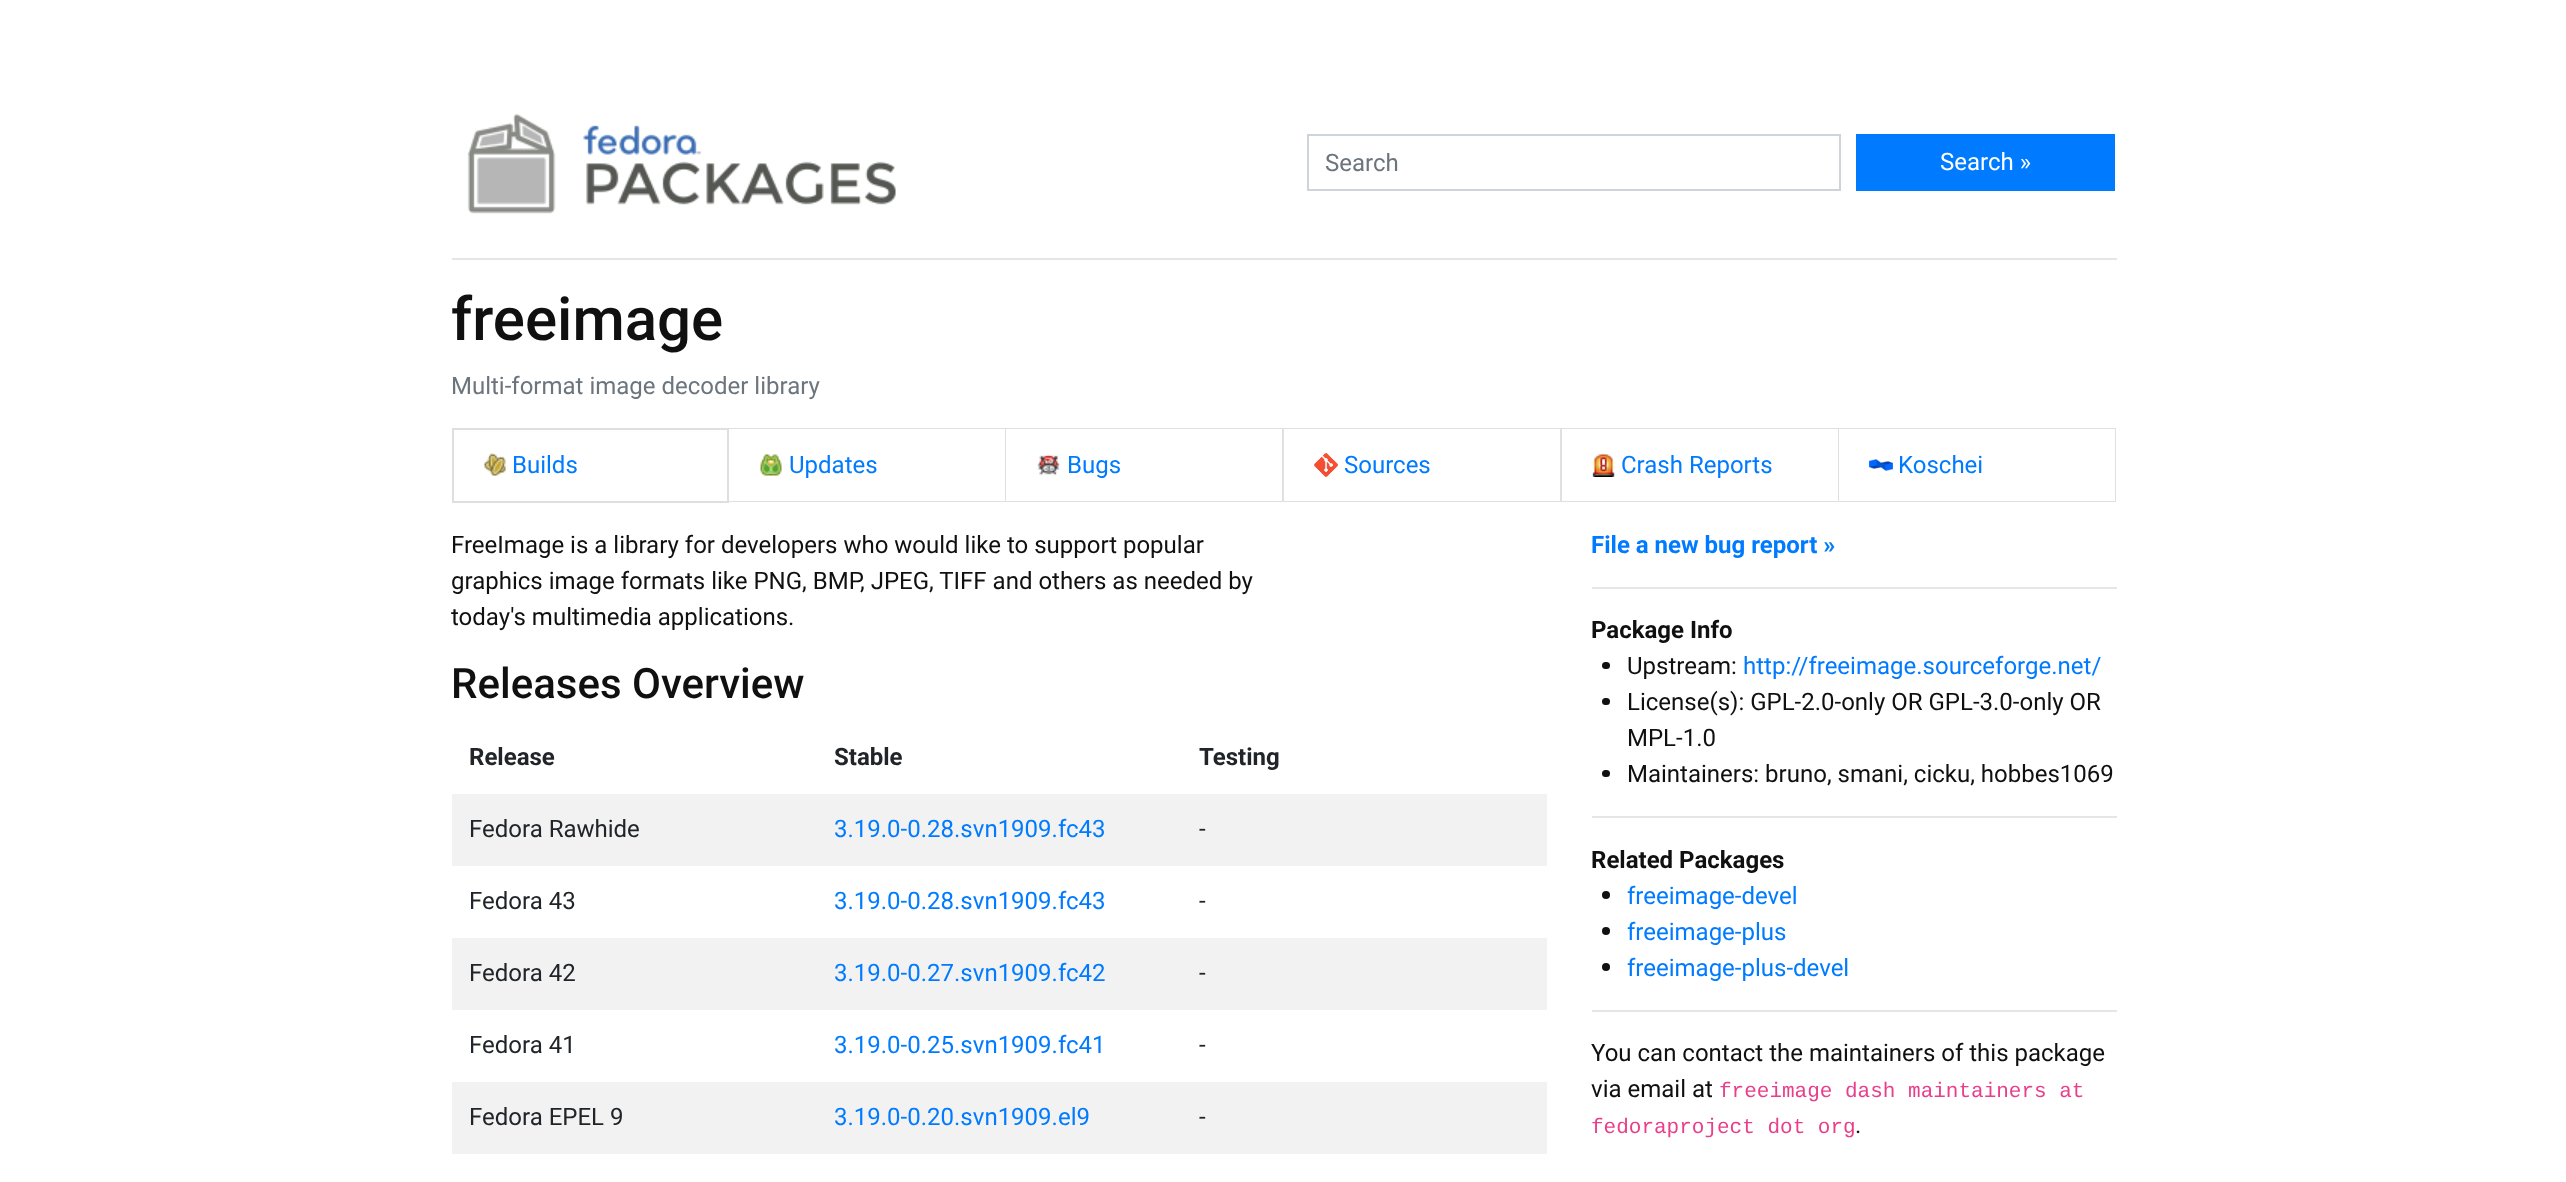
<?xml version="1.0" encoding="UTF-8"?>
<svg xmlns="http://www.w3.org/2000/svg" width="2566" height="1182">
    <rect width="100%" height="100%" fill="#FFFFFF"/>
    <image x="467" y="113" width="429" height="101" href="img_01.png"/>
    <rect x="1308" y="135" width="532" height="55" fill="none" stroke="#CED4DA" stroke-width="2"/>
    <text x="1325" y="171" font-family="Roboto" font-size="24" fill="#6C757D">Search</text>
    <rect x="1856" y="134" width="259" height="57" fill="#007BFF"/>
    <text x="1940" y="170" font-family="Roboto" font-size="24" fill="#FFFFFF">Search »</text>
    <rect x="452" y="258" width="1665" height="2" fill="#E6E6E6"/>
    <text x="451" y="340" font-family="Roboto" font-size="60" font-weight="500" fill="#101010">freeimage</text>
    <text x="451" y="394" font-family="Roboto" font-size="24" fill="#6C757D">Multi-format image decoder library</text>
    <rect x="453" y="429" width="275" height="73" fill="none" stroke="#DFDFDF" stroke-width="2"/>
    <image x="483" y="453" width="23" height="23" href="img_02.png"/>
    <text x="512" y="473" font-family="Roboto" font-size="24" fill="#007BFF">Builds</text>
    <path d="M 729 428 H 1006 L 1005 429 H 729 Z" fill="#DFDFDF"/>
    <path d="M 1006 428 V 502 L 1005 501 V 429 Z" fill="#000000" fill-opacity="0.12"/>
    <path d="M 1006 502 H 729 V 501 H 1005 Z" fill="#000000" fill-opacity="0.12"/>
    <image x="760" y="454" width="22" height="22" href="img_03.png"/>
    <text x="789" y="473" font-family="Roboto" font-size="24" fill="#007BFF">Updates</text>
    <path d="M 1006 428 H 1284 L 1282 429 H 1006 Z" fill="#DFDFDF"/>
    <path d="M 1284 428 V 502 L 1282 501 V 429 Z" fill="#000000" fill-opacity="0.12"/>
    <path d="M 1284 502 H 1006 V 501 H 1282 Z" fill="#000000" fill-opacity="0.12"/>
    <image x="1037" y="454" width="23" height="22" href="img_04.png"/>
    <text x="1067" y="473" font-family="Roboto" font-size="24" fill="#007BFF">Bugs</text>
    <path d="M 1284 428 H 1562 L 1560 429 H 1284 Z" fill="#DFDFDF"/>
    <path d="M 1562 428 V 502 L 1560 501 V 429 Z" fill="#000000" fill-opacity="0.12"/>
    <path d="M 1562 502 H 1284 V 501 H 1560 Z" fill="#000000" fill-opacity="0.12"/>
    <image x="1314" y="453" width="24" height="24" href="img_05.png"/>
    <text x="1344" y="473" font-family="Roboto" font-size="24" fill="#007BFF">Sources</text>
    <path d="M 1562 428 H 1839 L 1838 429 H 1562 Z" fill="#DFDFDF"/>
    <path d="M 1839 428 V 502 L 1838 501 V 429 Z" fill="#000000" fill-opacity="0.12"/>
    <path d="M 1839 502 H 1562 V 501 H 1838 Z" fill="#000000" fill-opacity="0.12"/>
    <image x="1591" y="453" width="25" height="24" href="img_06.png"/>
    <text x="1621" y="473" font-family="Roboto" font-size="24" fill="#007BFF">Crash Reports</text>
    <path d="M 1839 428 H 2116 L 2115 429 H 1839 Z" fill="#DFDFDF"/>
    <path d="M 2116 428 V 502 L 2115 501 V 429 Z" fill="#000000" fill-opacity="0.12"/>
    <path d="M 2116 502 H 1839 V 501 H 2115 Z" fill="#000000" fill-opacity="0.12"/>
    <image x="1869" y="459" width="24" height="12" href="img_07.png"/>
    <text x="1898" y="473" font-family="Roboto" font-size="24" fill="#007BFF">Koschei</text>
    <text font-family="Roboto" font-size="24" fill="#101010">
        <tspan x="451" y="553">FreeImage is a library for developers who would like to support popular</tspan>
        <tspan x="451" y="589">graphics image formats like PNG, BMP, JPEG, TIFF and others as needed by</tspan>
        <tspan x="451" y="625">today's multimedia applications.</tspan>
    </text>
    <text x="451" y="698" font-family="Roboto" font-size="42" font-weight="500" fill="#101010">Releases Overview</text>
    <text x="469" y="765" font-family="Roboto" font-size="24" font-weight="700" fill="#212529">Release</text>
    <text x="834" y="765" font-family="Roboto" font-size="24" font-weight="700" fill="#212529">Stable</text>
    <text x="1199" y="765" font-family="Roboto" font-size="24" font-weight="700" fill="#212529">Testing</text>
    <rect x="452" y="794" width="1095" height="72" fill="#F2F2F2"/>
    <text x="469" y="837" font-family="Roboto" font-size="24" fill="#212529">Fedora Rawhide</text>
    <text x="834" y="837" font-family="Roboto" font-size="24" fill="#007BFF">3.19.0-0.28.svn1909.fc43</text>
    <text x="1199" y="837" font-family="Roboto" font-size="24" fill="#212529">-</text>
    <text x="469" y="909" font-family="Roboto" font-size="24" fill="#212529">Fedora 43</text>
    <text x="834" y="909" font-family="Roboto" font-size="24" fill="#007BFF">3.19.0-0.28.svn1909.fc43</text>
    <text x="1199" y="909" font-family="Roboto" font-size="24" fill="#212529">-</text>
    <rect x="452" y="938" width="1095" height="72" fill="#F2F2F2"/>
    <text x="469" y="981" font-family="Roboto" font-size="24" fill="#212529">Fedora 42</text>
    <text x="834" y="981" font-family="Roboto" font-size="24" fill="#007BFF">3.19.0-0.27.svn1909.fc42</text>
    <text x="1199" y="981" font-family="Roboto" font-size="24" fill="#212529">-</text>
    <text x="469" y="1053" font-family="Roboto" font-size="24" fill="#212529">Fedora 41</text>
    <text x="834" y="1053" font-family="Roboto" font-size="24" fill="#007BFF">3.19.0-0.25.svn1909.fc41</text>
    <text x="1199" y="1053" font-family="Roboto" font-size="24" fill="#212529">-</text>
    <rect x="452" y="1082" width="1095" height="72" fill="#F2F2F2"/>
    <text x="469" y="1125" font-family="Roboto" font-size="24" fill="#212529">Fedora EPEL 9</text>
    <text x="834" y="1125" font-family="Roboto" font-size="24" fill="#007BFF">3.19.0-0.20.svn1909.el9</text>
    <text x="1199" y="1125" font-family="Roboto" font-size="24" fill="#212529">-</text>
    <text x="1591" y="553" font-family="Roboto" font-size="24" font-weight="700" fill="#007BFF">File a new bug report »</text>
    <rect x="1592" y="587" width="525" height="2" fill="#E6E6E6"/>
    <text x="1591" y="638" font-family="Roboto" font-size="24" font-weight="700" fill="#101010">Package Info</text>
    <rect x="1602" y="662" width="8" height="7" rx="3.5" fill="#101010"/>
    <text x="1627" y="674" font-family="Roboto" font-size="24" fill="#101010">Upstream:</text>
    <text x="1743" y="674" font-family="Roboto" font-size="24" fill="#007BFF">http://freeimage.sourceforge.net/</text>
    <rect x="1602" y="698" width="8" height="7" rx="3.5" fill="#101010"/>
    <text font-family="Roboto" font-size="24" fill="#101010">
        <tspan x="1627" y="710">License(s): GPL-2.0-only OR GPL-3.0-only OR</tspan>
        <tspan x="1627" y="746">MPL-1.0</tspan>
    </text>
    <rect x="1602" y="770" width="8" height="7" rx="3.5" fill="#101010"/>
    <text x="1627" y="782" font-family="Roboto" font-size="24" fill="#101010">Maintainers: bruno, smani, cicku, hobbes1069</text>
    <rect x="1592" y="816" width="525" height="2" fill="#E6E6E6"/>
    <text x="1591" y="868" font-family="Roboto" font-size="24" font-weight="700" fill="#101010">Related Packages</text>
    <circle cx="1606" cy="895" r="4" fill="#101010"/>
    <text x="1627" y="904" font-family="Roboto" font-size="24" fill="#007BFF">freeimage-devel</text>
    <circle cx="1606" cy="931" r="4" fill="#101010"/>
    <text x="1627" y="940" font-family="Roboto" font-size="24" fill="#007BFF">freeimage-plus</text>
    <circle cx="1606" cy="967" r="4" fill="#101010"/>
    <text x="1627" y="976" font-family="Roboto" font-size="24" fill="#007BFF">freeimage-plus-devel</text>
    <rect x="1592" y="1010" width="525" height="2" fill="#E6E6E6"/>
    <text font-family="Roboto" font-size="24" fill="#101010">
        <tspan x="1591" y="1061">You can contact the maintainers of this package</tspan>
        <tspan x="1591" y="1097">via email at</tspan>
    </text>
    <text x="1719" y="1097" font-family="Liberation Mono" font-size="21" fill="#E83E8C">freeimage dash maintainers at</text>
    <text x="1591" y="1133" font-family="Liberation Mono" font-size="21" fill="#E83E8C">fedoraproject dot org</text>
    <text x="1855" y="1133" font-family="Roboto" font-size="24" fill="#101010">.</text>
</svg>
